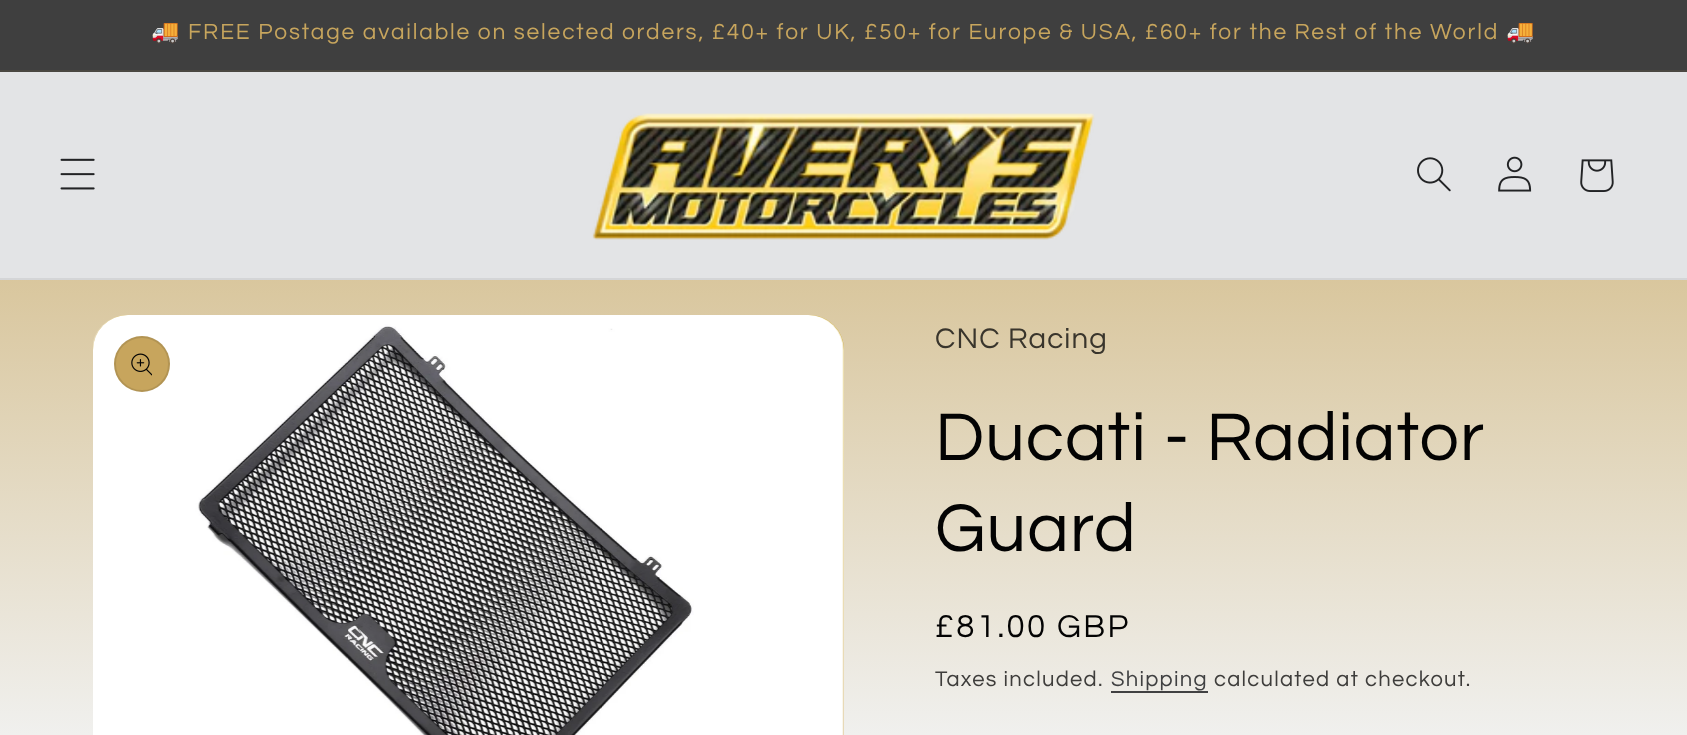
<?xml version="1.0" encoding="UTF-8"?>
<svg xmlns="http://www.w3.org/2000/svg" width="1687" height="735">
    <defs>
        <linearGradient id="g1" gradientUnits="userSpaceOnUse" x1="844" y1="0" x2="844" y2="735"><stop offset="0" stop-color="#CBAD6C"/><stop offset="1" stop-color="#F0F0EE"/></linearGradient>
        <linearGradient id="g2" gradientUnits="userSpaceOnUse" x1="844" y1="0" x2="844" y2="735"><stop offset="0" stop-color="#C7A55D" stop-opacity="0.9"/><stop offset="1" stop-color="#F9EA20" stop-opacity="0.03"/></linearGradient>
    </defs>
    <rect width="100%" height="100%" fill="#FFFFFF"/>
    <rect x="0" y="0" width="1687" height="70" fill="#3F3F3F"/>
    <rect x="0" y="70" width="1687" height="2" fill="#4A4741"/>
    <text x="151" y="39" font-family="Noto Color Emoji" font-size="22.75" letter-spacing="1.84" fill="#C7A55D">🚚</text>
    <text x="188" y="39" font-family="Questrial" font-size="22.75" letter-spacing="1.84" fill="#C7A55D">FREE Postage available on selected orders, £40+ for UK, £50+ for Europe &amp; USA, £60+ for the Rest of the World</text>
    <text x="1506" y="39" font-family="Noto Color Emoji" font-size="22.75" letter-spacing="1.84" fill="#C7A55D">🚚</text>
    <rect x="0" y="72" width="1687" height="206" fill="#E3E4E6"/>
    <rect x="0" y="278" width="1687" height="2" fill="#D4D5D7"/>
    <image x="60" y="158" width="35" height="32" href="img_01.png"/>
    <image x="592" y="113" width="503" height="127" href="img_02.png"/>
    <image x="1417" y="157" width="34" height="35" href="img_03.png"/>
    <image x="1498" y="156" width="34" height="36" href="img_04.png"/>
    <image x="1580" y="159" width="34" height="33" href="img_05.png"/>
    <rect x="0" y="280" width="1687" height="455" fill="url(#g1)"/>
    <rect x="93" y="315" width="751" height="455" rx="35" fill="#C7A55D"/>
    <path d="M 128 315 H 809 C 828.5 315 844 330.5 844 350 V 735 H 93 V 350 C 93 330.5 108.5 315 128 315 Z" fill="url(#g2)"/>
    <image x="93" y="315" width="751" height="420" href="img_06.png"/>
    <circle cx="142" cy="364" r="28" fill="#C7A55D"/>
    <circle cx="142" cy="364" r="27" fill="none" stroke="#030303" stroke-opacity="0.1" stroke-width="2"/>
    <image x="131" y="353" width="21" height="23" href="img_07.png"/>
    <text x="935" y="348" font-family="Questrial" font-size="29.5" letter-spacing="1.1" fill="#39352C">CNC Racing</text>
    <text font-family="Questrial" font-size="70" letter-spacing="1" fill="#030303">
        <tspan x="935" y="460">Ducati - Radiator</tspan>
        <tspan x="935" y="551">Guard</tspan>
    </text>
    <text x="935" y="637" font-family="Questrial" font-size="33" letter-spacing="2.4" fill="#030303">£81.00 GBP</text>
    <text x="935" y="686" font-family="Questrial" font-size="22" letter-spacing="1.25" fill="#3E3D3B">Taxes included.</text>
    <text x="1111" y="686" font-family="Questrial" font-size="22" letter-spacing="1.25" fill="#404142">Shipping</text>
    <rect x="1111" y="691" width="97" height="2" fill="#414142"/>
    <text x="1214" y="686" font-family="Questrial" font-size="22" letter-spacing="1.25" fill="#3E3D3B">calculated at checkout.</text>
</svg>
